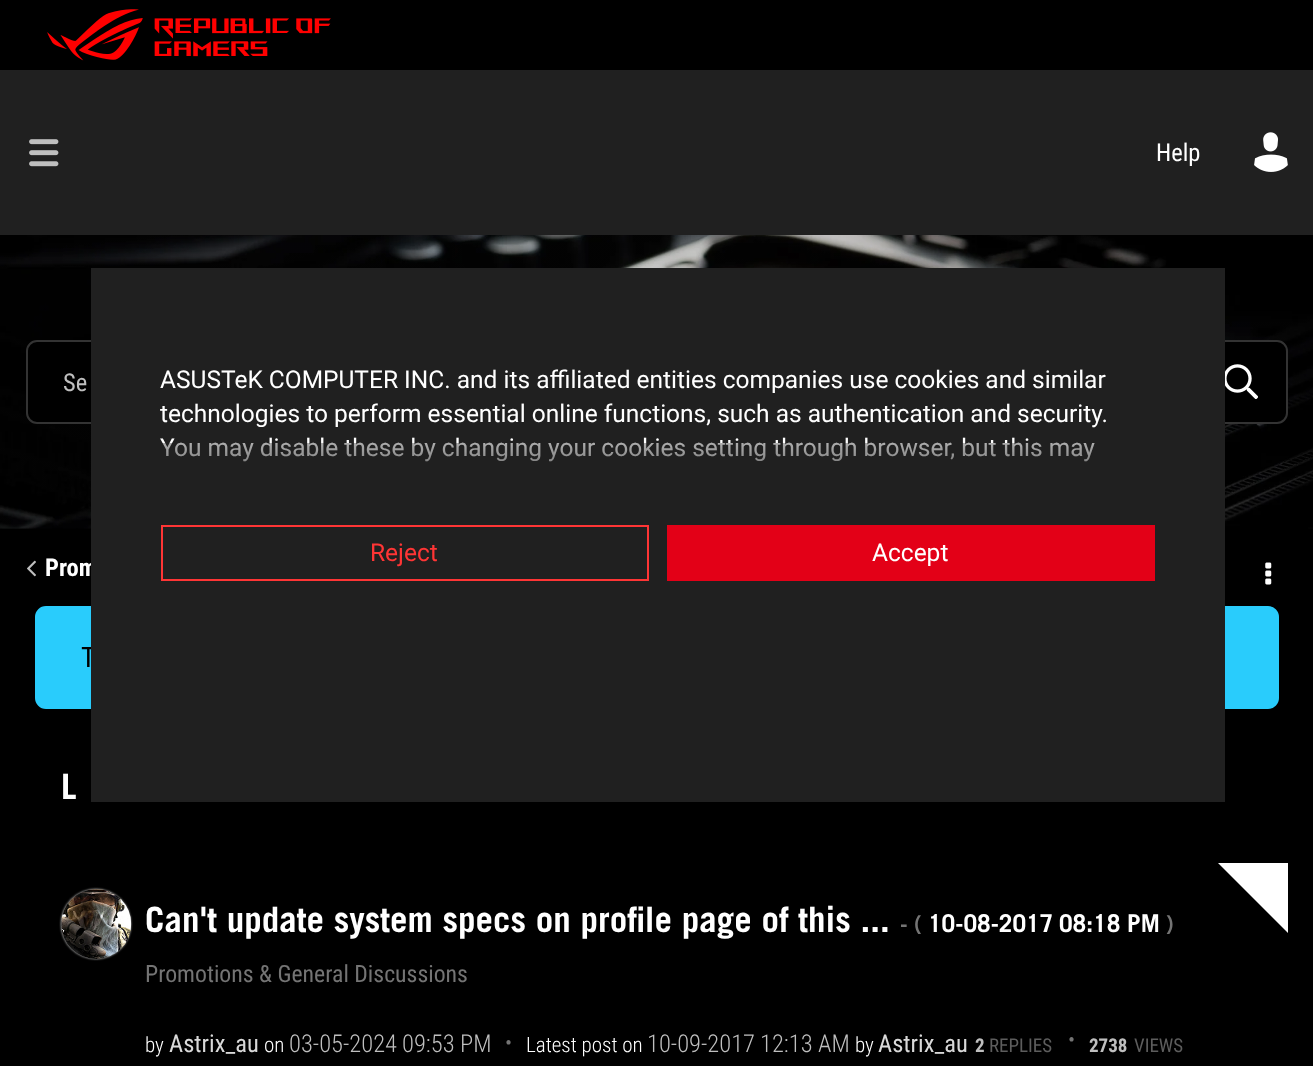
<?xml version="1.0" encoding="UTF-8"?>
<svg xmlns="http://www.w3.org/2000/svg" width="1313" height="1066">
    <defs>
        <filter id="blur1" x="-50%" y="-200%" width="200%" height="500%"><feGaussianBlur stdDeviation="1"/></filter>
        <linearGradient id="g1" gradientUnits="userSpaceOnUse" x1="658" y1="442" x2="658" y2="510"><stop offset="0" stop-color="#202020" stop-opacity="0.36"/><stop offset="1" stop-color="#202020"/></linearGradient>
    </defs>
    <rect width="100%" height="100%" fill="#000000"/>
    <image x="47" y="9" width="284" height="52" href="img_01.png"/>
    <rect x="0" y="70" width="1313" height="165" fill="#202020"/>
    <image x="29" y="139" width="30" height="28" href="img_02.png"/>
    <text x="1156" y="161" font-family="Roboto Condensed" font-size="24.5" fill="#FFFFFF">Help</text>
    <image x="1254" y="132" width="34" height="40" href="img_03.png"/>
    <image x="0" y="235" width="1313" height="294" href="img_04.png"/>
    <rect x="27" y="341" width="1260" height="82" rx="10" fill="#000000" stroke="#333333" stroke-width="2"/>
    <text x="63" y="391" font-family="Roboto Condensed" font-size="24.5" fill="#BFBFBF">Se</text>
    <image x="1225" y="364" width="33" height="35" href="img_05.png"/>
    <image x="27" y="560" width="9" height="17" href="img_06.png"/>
    <text x="45" y="576" font-family="Roboto Condensed" font-size="24.5" font-weight="700" fill="#FFFFFF">Prom</text>
    <image x="1265" y="562" width="7" height="23" href="img_07.png"/>
    <rect x="36" y="607" width="1242" height="101" rx="10" fill="#29CCFC" stroke="#29CCFC" stroke-width="2"/>
    <text x="81" y="667" font-family="Roboto Condensed" font-size="28" fill="#000000">T</text>
    <text x="61" y="799" font-family="Trade Gothic" font-size="35" font-weight="700" fill="#FFFFFF">L</text>
    <rect x="61" y="889" width="70" height="70" rx="35" fill="#C4C4C4" filter="url(#blur1)"/>
    <image x="61" y="889" width="71" height="70" href="img_08.png"/>
    <text x="145" y="932" font-family="Trade Gothic" font-size="35" font-weight="700" fill="#FFFFFF">Can't update system specs on profile page of this ...</text>
    <text x="900" y="932" font-family="Trade Gothic" font-size="23" font-weight="700" fill="#747474">- (</text>
    <text x="928" y="932" font-family="Trade Gothic" font-size="24.5" font-weight="700" fill="#FFFFFF">10-08-2017</text>
    <text x="1059" y="932" font-family="Trade Gothic" font-size="24.5" font-weight="700" fill="#FFFFFF">08:18 PM</text>
    <text x="1166" y="932" font-family="Trade Gothic" font-size="23" font-weight="700" fill="#747474">)</text>
    <text x="145" y="982" font-family="Roboto Condensed" font-size="23.75" fill="#747474">Promotions &amp; General Discussions</text>
    <text x="145" y="1052" font-family="Roboto Condensed" font-size="21" font-weight="300" fill="#FFFFFF">by</text>
    <text x="169" y="1052" font-family="Roboto Condensed" font-size="24.5" fill="#D9D9D9">Astrix_au</text>
    <text x="264" y="1052" font-family="Roboto Condensed" font-size="21" font-weight="300" fill="#FFFFFF">on</text>
    <text x="289" y="1052" font-family="Roboto Condensed" font-size="24.5" font-weight="300" fill="#BFBFBF">03-05-2024</text>
    <text x="402" y="1052" font-family="Roboto Condensed" font-size="24.5" font-weight="300" fill="#BFBFBF">09:53 PM</text>
    <text x="505" y="1050" font-family="Roboto Condensed" font-size="21" fill="#747474">•</text>
    <text x="526" y="1052" font-family="Roboto Condensed" font-size="21" font-weight="300" fill="#FFFFFF">Latest post on</text>
    <text x="647" y="1052" font-family="Roboto Condensed" font-size="24.5" font-weight="300" fill="#BFBFBF">10-09-2017</text>
    <text x="760" y="1052" font-family="Roboto Condensed" font-size="24.5" font-weight="300" fill="#BFBFBF">12:13 AM</text>
    <text x="855" y="1052" font-family="Roboto Condensed" font-size="21" font-weight="300" fill="#FFFFFF">by</text>
    <text x="878" y="1052" font-family="Roboto Condensed" font-size="24.5" fill="#D9D9D9">Astrix_au</text>
    <text x="975" y="1052" font-family="Roboto Condensed" font-size="19" font-weight="700" fill="#BFBFBF">2</text>
    <text x="989" y="1052" font-family="Roboto Condensed" font-size="19" fill="#5D5D5D">REPLIES</text>
    <text x="1068" y="1047" font-family="Roboto Condensed" font-size="21" fill="#747474">•</text>
    <text x="1089" y="1052" font-family="Roboto Condensed" font-size="19" font-weight="700" fill="#BFBFBF">2738</text>
    <text x="1134" y="1052" font-family="Roboto Condensed" font-size="19" fill="#5D5D5D">VIEWS</text>
    <path d="M 1218 863 H 1288 V 933 Z" fill="#FFFFFF"/>
    <rect x="91" y="268" width="1134" height="534" fill="#202020"/>
    <text font-family="Roboto" font-size="24.5" fill="#FFFFFF">
        <tspan x="160" y="388">ASUSTeK COMPUTER INC. and its affiliated entities companies use cookies and similar</tspan>
        <tspan x="160" y="422">technologies to perform essential online functions, such as authentication and security.</tspan>
        <tspan x="160" y="456">You may disable these by changing your cookies setting through browser, but this may</tspan>
    </text>
    <rect x="162" y="443" width="933" height="19" fill="url(#g1)"/>
    <rect x="162" y="526" width="486" height="54" fill="none" stroke="#FF3535" stroke-width="2"/>
    <text x="370" y="561" font-family="Roboto" font-size="24.5" fill="#FF3535">Reject</text>
    <rect x="667" y="525" width="488" height="56" fill="#E30017"/>
    <text x="872" y="561" font-family="Roboto" font-size="24.5" fill="#FFFFFF">Accept</text>
</svg>
